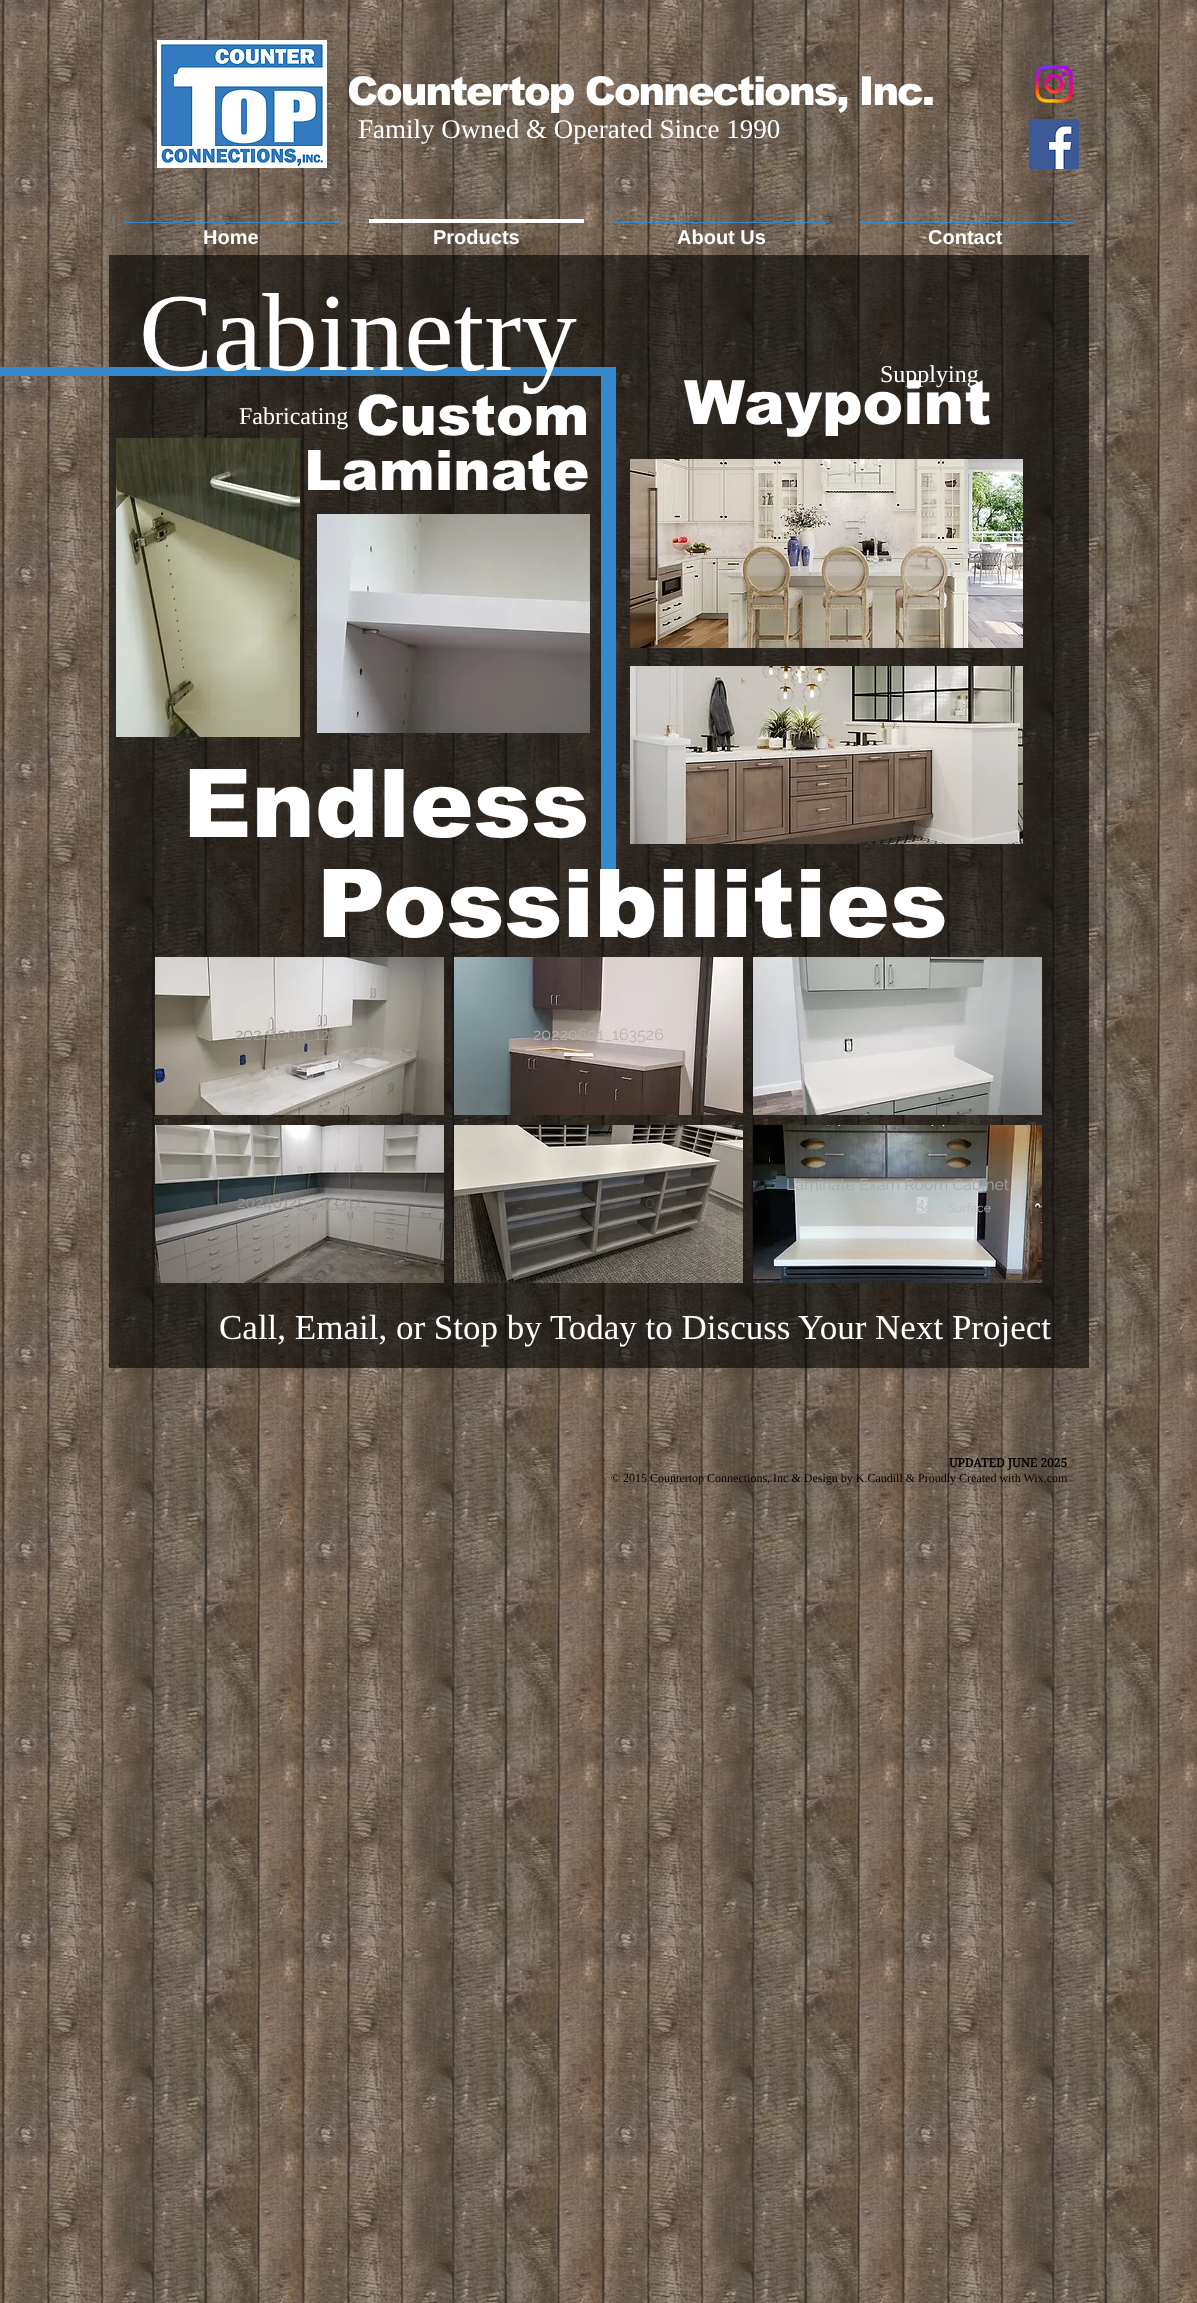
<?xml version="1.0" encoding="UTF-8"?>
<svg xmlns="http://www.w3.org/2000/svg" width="1197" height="2303">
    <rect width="100%" height="100%" fill="#FFFFFF"/>
    <image x="0" y="0" width="1197" height="2303" href="img_01.png"/>
    <image x="157" y="40" width="170" height="128" href="img_02.png"/>
    <text x="347" y="105" font-family="arial" font-size="40" font-weight="900" letter-spacing="-2" fill="#FFFFFF">Countertop Connections, Inc.</text>
    <text x="358" y="138" font-family="Liberation Serif" font-size="27" fill="#FFFFFF">Family Owned &amp; Operated Since 1990</text>
    <image x="1035" y="65" width="38" height="38" href="img_03.png"/>
    <image x="1029" y="119" width="50" height="50" href="img_04.png"/>
    <rect x="124" y="222" width="215" height="1" fill="#3588CC"/>
    <text x="203" y="244" font-family="Liberation Sans" font-size="20" font-weight="700" fill="#FFFFFF">Home</text>
    <rect x="369" y="219" width="215" height="4" fill="#FFFFFF"/>
    <text x="433" y="244" font-family="Liberation Sans" font-size="20" font-weight="700" fill="#FFFFFF">Products</text>
    <rect x="614" y="222" width="215" height="1" fill="#3588CC"/>
    <text x="677" y="244" font-family="Liberation Sans" font-size="20" font-weight="700" fill="#FFFFFF">About Us</text>
    <rect x="859" y="222" width="214" height="1" fill="#3588CC"/>
    <text x="928" y="244" font-family="Liberation Sans" font-size="20" font-weight="700" fill="#FFFFFF">Contact</text>
    <rect x="109" y="255" width="980" height="1113" fill="#000000" fill-opacity="0.6"/>
    <rect x="0" y="367" width="616" height="9" fill="#3588CC"/>
    <text x="139" y="370" font-family="Liberation Serif" font-size="111" fill="#FFFFFF">Cabinetry</text>
    <text x="880" y="382" font-family="Liberation Serif" font-size="24" fill="#FFFFFF">Supplying</text>
    <text x="239" y="424" font-family="Liberation Serif" font-size="24" fill="#FFFFFF">Fabricating</text>
    <text x="356" y="435" font-family="arial" font-size="56" font-weight="900" fill="#FFFFFF">Custom</text>
    <text x="304" y="490" font-family="arial" font-size="56" font-weight="900" fill="#FFFFFF">Laminate</text>
    <rect x="601" y="376" width="15" height="510" fill="#3588CC"/>
    <text x="684" y="424" font-family="arial" font-size="61" font-weight="900" fill="#FFFFFF">Waypoint</text>
    <image x="116" y="438" width="184" height="299" href="img_05.png"/>
    <image x="317" y="514" width="273" height="219" href="img_06.png"/>
    <image x="630" y="459" width="393" height="189" href="img_07.png"/>
    <text x="183" y="837" font-family="arial" font-size="95" font-weight="900" fill="#FFFFFF">Endless</text>
    <image x="630" y="666" width="393" height="178" href="img_08.png"/>
    <text x="317" y="937" font-family="arial" font-size="95" font-weight="900" fill="#FFFFFF">Possibilities</text>
    <image x="155" y="957" width="289" height="158" href="img_09.png"/>
    <text x="235" y="1040" font-family="Raleway" font-size="16" fill="#9F9A90">20241009_121</text>
    <image x="454" y="957" width="289" height="158" href="img_10.png"/>
    <text x="533" y="1040" font-family="Raleway" font-size="16" fill="#BAB1AE">20220601_163526</text>
    <image x="753" y="957" width="289" height="158" href="img_11.png"/>
    <image x="155" y="1125" width="289" height="158" href="img_12.png"/>
    <text x="237" y="1208" font-family="Raleway" font-size="16" fill="#969593">20240125_143317</text>
    <image x="454" y="1125" width="289" height="158" href="img_13.png"/>
    <text x="516" y="1208" font-family="Raleway" font-size="16" fill="#4C4944">_</text>
    <text x="645" y="1208" font-family="Raleway" font-size="16" fill="#4C4944">0</text>
    <image x="753" y="1125" width="289" height="158" href="img_14.png"/>
    <text x="786" y="1190" font-family="Raleway" font-size="16" fill="#A5A9A6">Laminate Exam Room Cabinet</text>
    <text x="917" y="1212" font-family="Raleway" font-size="12" fill="#B6BBBB">So</text>
    <text x="948" y="1212" font-family="Raleway" font-size="12" fill="#B6BBBB">Surface</text>
    <text x="219" y="1339" font-family="Liberation Serif" font-size="35" fill="#FFFFFF">Call, Email, or Stop by Today to Discuss Your Next Project</text>
    <text x="949" y="1467" font-family="'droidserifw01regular'" font-size="12" font-weight="700" fill="#000000">UPDATED JUNE 2025</text>
    <text x="611" y="1482" font-family="Liberation Serif" font-size="12" fill="#000000">© 2015 Countertop Connections, Inc &amp; Design by K.Caudill &amp; Proudly Created with Wix.com</text>
</svg>
